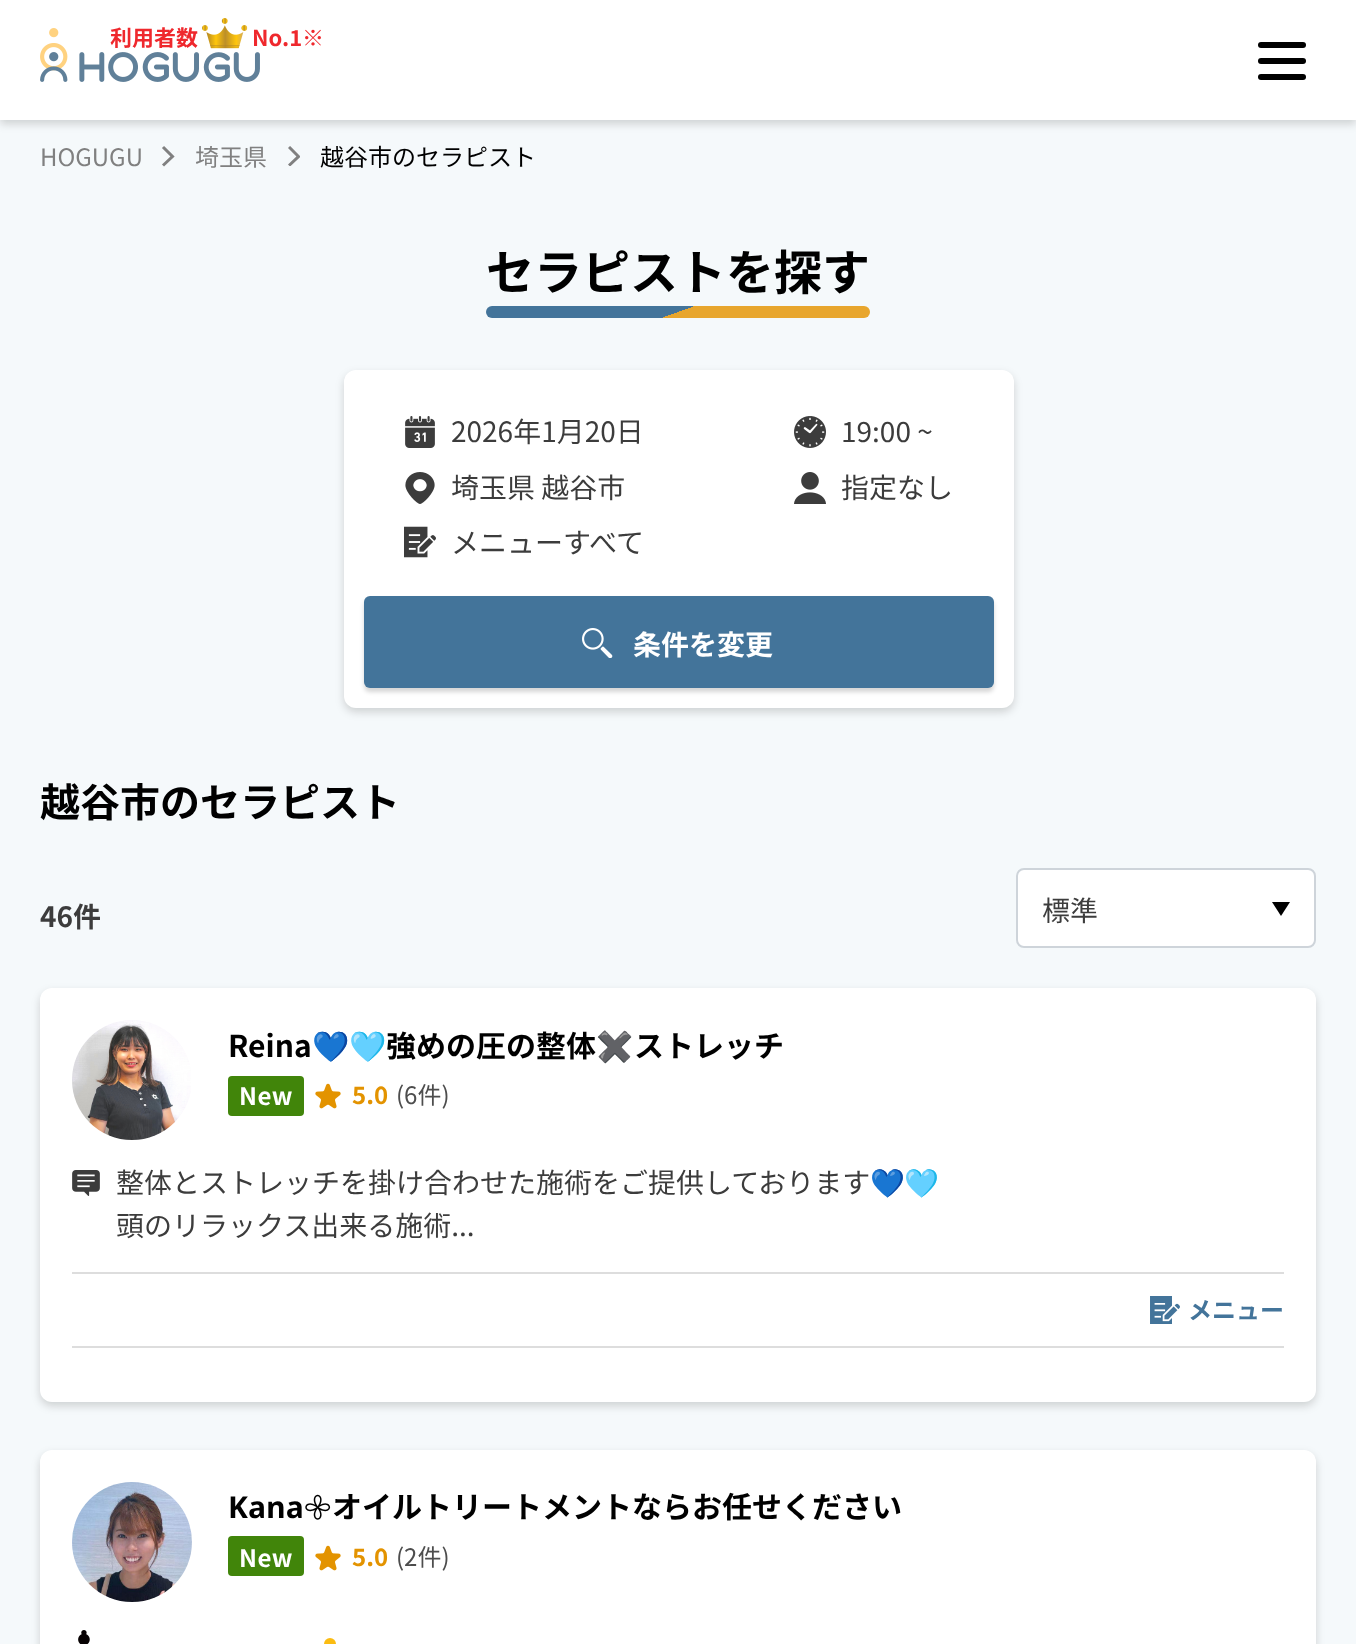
<?xml version="1.0" encoding="UTF-8"?>
<svg xmlns="http://www.w3.org/2000/svg" width="1356" height="1644">
    <defs>
        <filter id="blur1" x="-50%" y="-200%" width="200%" height="500%"><feGaussianBlur stdDeviation="4"/></filter>
        <clipPath id="clip1"><rect x="288" y="146" width="12" height="20"/></clipPath>
        <linearGradient id="g1" gradientUnits="userSpaceOnUse" x1="654" y1="245" x2="702" y2="379"><stop offset="0" stop-color="#43749A"/><stop offset="0.5" stop-color="#43749A"/><stop offset="0.5" stop-color="#E8A62D"/><stop offset="1" stop-color="#E8A62D"/></linearGradient>
        <filter id="blur2" x="-50%" y="-200%" width="200%" height="500%"><feGaussianBlur stdDeviation="2"/></filter>
    </defs>
    <rect width="100%" height="100%" fill="#F5F9FB"/>
    <rect x="0" y="4" width="1356" height="120" fill="#000000" fill-opacity="0.16" filter="url(#blur1)"/>
    <rect x="0" y="0" width="1356" height="120" fill="#FFFFFF"/>
    <image x="40" y="28" width="220" height="54" href="img_02.png"/>
    <text x="110" y="46" font-family="Noto Sans JP" font-size="22" font-weight="700" fill="#EF282D">利用者数</text>
    <image x="202" y="18" width="46" height="31" href="img_01.png"/>
    <text x="252" y="46" font-family="Noto Sans JP" font-size="22" font-weight="700" fill="#EF282D">No.1※</text>
    <rect x="1258" y="58" width="48" height="6" rx="3" fill="#000000"/>
    <rect x="1258" y="42" width="48" height="6" rx="3" fill="#000000"/>
    <rect x="1258" y="74" width="48" height="6" rx="3" fill="#000000"/>
    <text x="40" y="166" font-family="Noto Sans JP" font-size="24" fill="#808080">HOGUGU</text>
    <path d="M 163 147 L 172.5 156.5 L 163 165.5" fill="none" stroke="#808080" stroke-width="3"/>
    <text x="195" y="166" font-family="Noto Sans JP" font-size="24" fill="#808080">埼玉県</text>
    <g clip-path="url(#clip1)">
        <path d="M 289 147 L 298.5 156.5 L 289 165.5" fill="none" stroke="#808080" stroke-width="3"/>
    </g>
    <text x="320" y="166" font-family="Noto Sans JP" font-size="24" fill="#000000">越谷市のセラピスト</text>
    <text x="486" y="290" font-family="Noto Sans JP" font-size="48" font-weight="700" fill="#000000">セラピストを探す</text>
    <rect x="486" y="306" width="384" height="12" rx="6" fill="url(#g1)"/>
    <rect x="344" y="374" width="670" height="338" rx="12" fill="#000000" fill-opacity="0.16" filter="url(#blur1)"/>
    <rect x="344" y="370" width="670" height="338" rx="12" fill="#FFFFFF"/>
    <image x="405" y="416" width="30" height="32" href="img_03.png"/>
    <text x="451" y="442" font-family="Noto Sans JP" font-size="28" fill="#3C3C3C">2026年1月20日</text>
    <image x="794" y="416" width="32" height="32" href="img_04.png"/>
    <text x="841" y="442" font-family="Noto Sans JP" font-size="28" fill="#3C3C3C">19:00 ~</text>
    <image x="405" y="472" width="30" height="32" href="img_05.png"/>
    <text x="451" y="498" font-family="Noto Sans JP" font-size="28" fill="#3C3C3C">埼玉県 越谷市</text>
    <image x="794" y="472" width="32" height="32" href="img_06.png"/>
    <text x="841" y="498" font-family="Noto Sans JP" font-size="28" fill="#3C3C3C">指定なし</text>
    <image x="404" y="526" width="32" height="32" href="img_07.png"/>
    <text x="451" y="553" font-family="Noto Sans JP" font-size="28" fill="#3C3C3C">メニューすべて</text>
    <rect x="364" y="600" width="630" height="92" rx="6" fill="#000000" fill-opacity="0.16" filter="url(#blur2)"/>
    <rect x="364" y="596" width="630" height="92" rx="6" fill="#43749A"/>
    <image x="582" y="628" width="31" height="30" href="img_08.png"/>
    <text x="633" y="655" font-family="Noto Sans JP" font-size="28" font-weight="700" fill="#FFFFFF">条件を変更</text>
    <text x="40" y="817" font-family="Noto Sans JP" font-size="40" font-weight="700" fill="#000000">越谷市のセラピスト</text>
    <text x="40" y="927" font-family="Noto Sans JP" font-size="28" font-weight="700" fill="#3C3C3C">46件</text>
    <rect x="1017" y="869" width="298" height="78" rx="7" fill="#FFFFFF" stroke="#CED4DA" stroke-width="2"/>
    <text x="1042" y="921" font-family="Noto Sans JP" font-size="28" fill="#3C3C3C">標準</text>
    <path d="M 1281 916 L 1272 902 H 1290 Z" fill="#000000"/>
    <rect x="40" y="992" width="1276" height="414" rx="12" fill="#000000" fill-opacity="0.16" filter="url(#blur1)"/>
    <rect x="40" y="988" width="1276" height="414" rx="12" fill="#FFFFFF"/>
    <image x="72" y="1020" width="119" height="120" href="img_09.png"/>
    <text x="228" y="1057" font-family="Noto Sans JP" font-size="30" font-weight="700" fill="#000000">Reina</text>
    <text x="312" y="1057" font-family="Noto Color Emoji" font-size="30" font-weight="700" fill="#000000">💙🩵</text>
    <text x="386" y="1057" font-family="Noto Sans JP" font-size="30" font-weight="700" fill="#000000">強めの圧の整体</text>
    <text x="596" y="1057" font-family="Noto Color Emoji" font-size="30" font-weight="700" fill="#000000">✖️</text>
    <text x="634" y="1057" font-family="Noto Sans JP" font-size="30" font-weight="700" fill="#000000">ストレッチ</text>
    <rect x="228" y="1076" width="76" height="40" rx="4" fill="#41850A"/>
    <text x="239" y="1105" font-family="Noto Sans JP" font-size="24" font-weight="700" letter-spacing="0.5" fill="#FFFFFF">New</text>
    <image x="315" y="1083" width="26" height="26" href="img_10.png"/>
    <text x="352" y="1104" font-family="Noto Sans JP" font-size="24" font-weight="700" fill="#E39300">5.0</text>
    <text x="396" y="1104" font-family="Noto Sans JP" font-size="24" fill="#4D4D4D">(6件)</text>
    <image x="72" y="1170" width="28" height="26" href="img_11.png"/>
    <text x="116" y="1193" font-family="Noto Sans JP" font-size="28" fill="#3C3C3C">整体とストレッチを掛け合わせた施術をご提供しております</text>
    <text x="870" y="1193" font-family="Noto Color Emoji" font-size="28" fill="#3C3C3C">💙🩵</text>
    <text x="116" y="1236" font-family="Noto Sans JP" font-size="28" fill="#3C3C3C">頭のリラックス出来る施術...</text>
    <rect x="72" y="1272" width="1212" height="2" fill="#DDDDDD"/>
    <rect x="72" y="1346" width="1212" height="2" fill="#DDDDDD"/>
    <image x="1150" y="1296" width="30" height="28" href="img_12.png"/>
    <text x="1188" y="1319" font-family="Noto Sans JP" font-size="24" font-weight="700" fill="#43749A">メニュー</text>
    <rect x="40" y="1454" width="1276" height="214" rx="12" fill="#000000" fill-opacity="0.16" filter="url(#blur1)"/>
    <rect x="40" y="1450" width="1276" height="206" rx="12" fill="#FFFFFF"/>
    <image x="72" y="1482" width="120" height="120" href="img_13.png"/>
    <text x="228" y="1518" font-family="Noto Sans Bamum" font-size="30" font-weight="700" fill="#000000">Kana𖧷</text>
    <text x="332" y="1518" font-family="Noto Sans JP" font-size="30" font-weight="700" fill="#000000">オイルトリートメントならお任せください</text>
    <rect x="228" y="1536" width="76" height="40" rx="4" fill="#41850A"/>
    <text x="239" y="1567" font-family="Noto Sans JP" font-size="24" font-weight="700" letter-spacing="0.5" fill="#FFFFFF">New</text>
    <image x="315" y="1545" width="26" height="26" href="img_10.png"/>
    <text x="352" y="1566" font-family="Noto Sans JP" font-size="24" font-weight="700" fill="#E39300">5.0</text>
    <text x="396" y="1566" font-family="Noto Sans JP" font-size="24" fill="#4D4D4D">(2件)</text>
    <image x="78" y="1630" width="12" height="14" href="img_14.png"/>
    <circle cx="330" cy="1644" r="6" fill="#FBBC12"/>
</svg>
